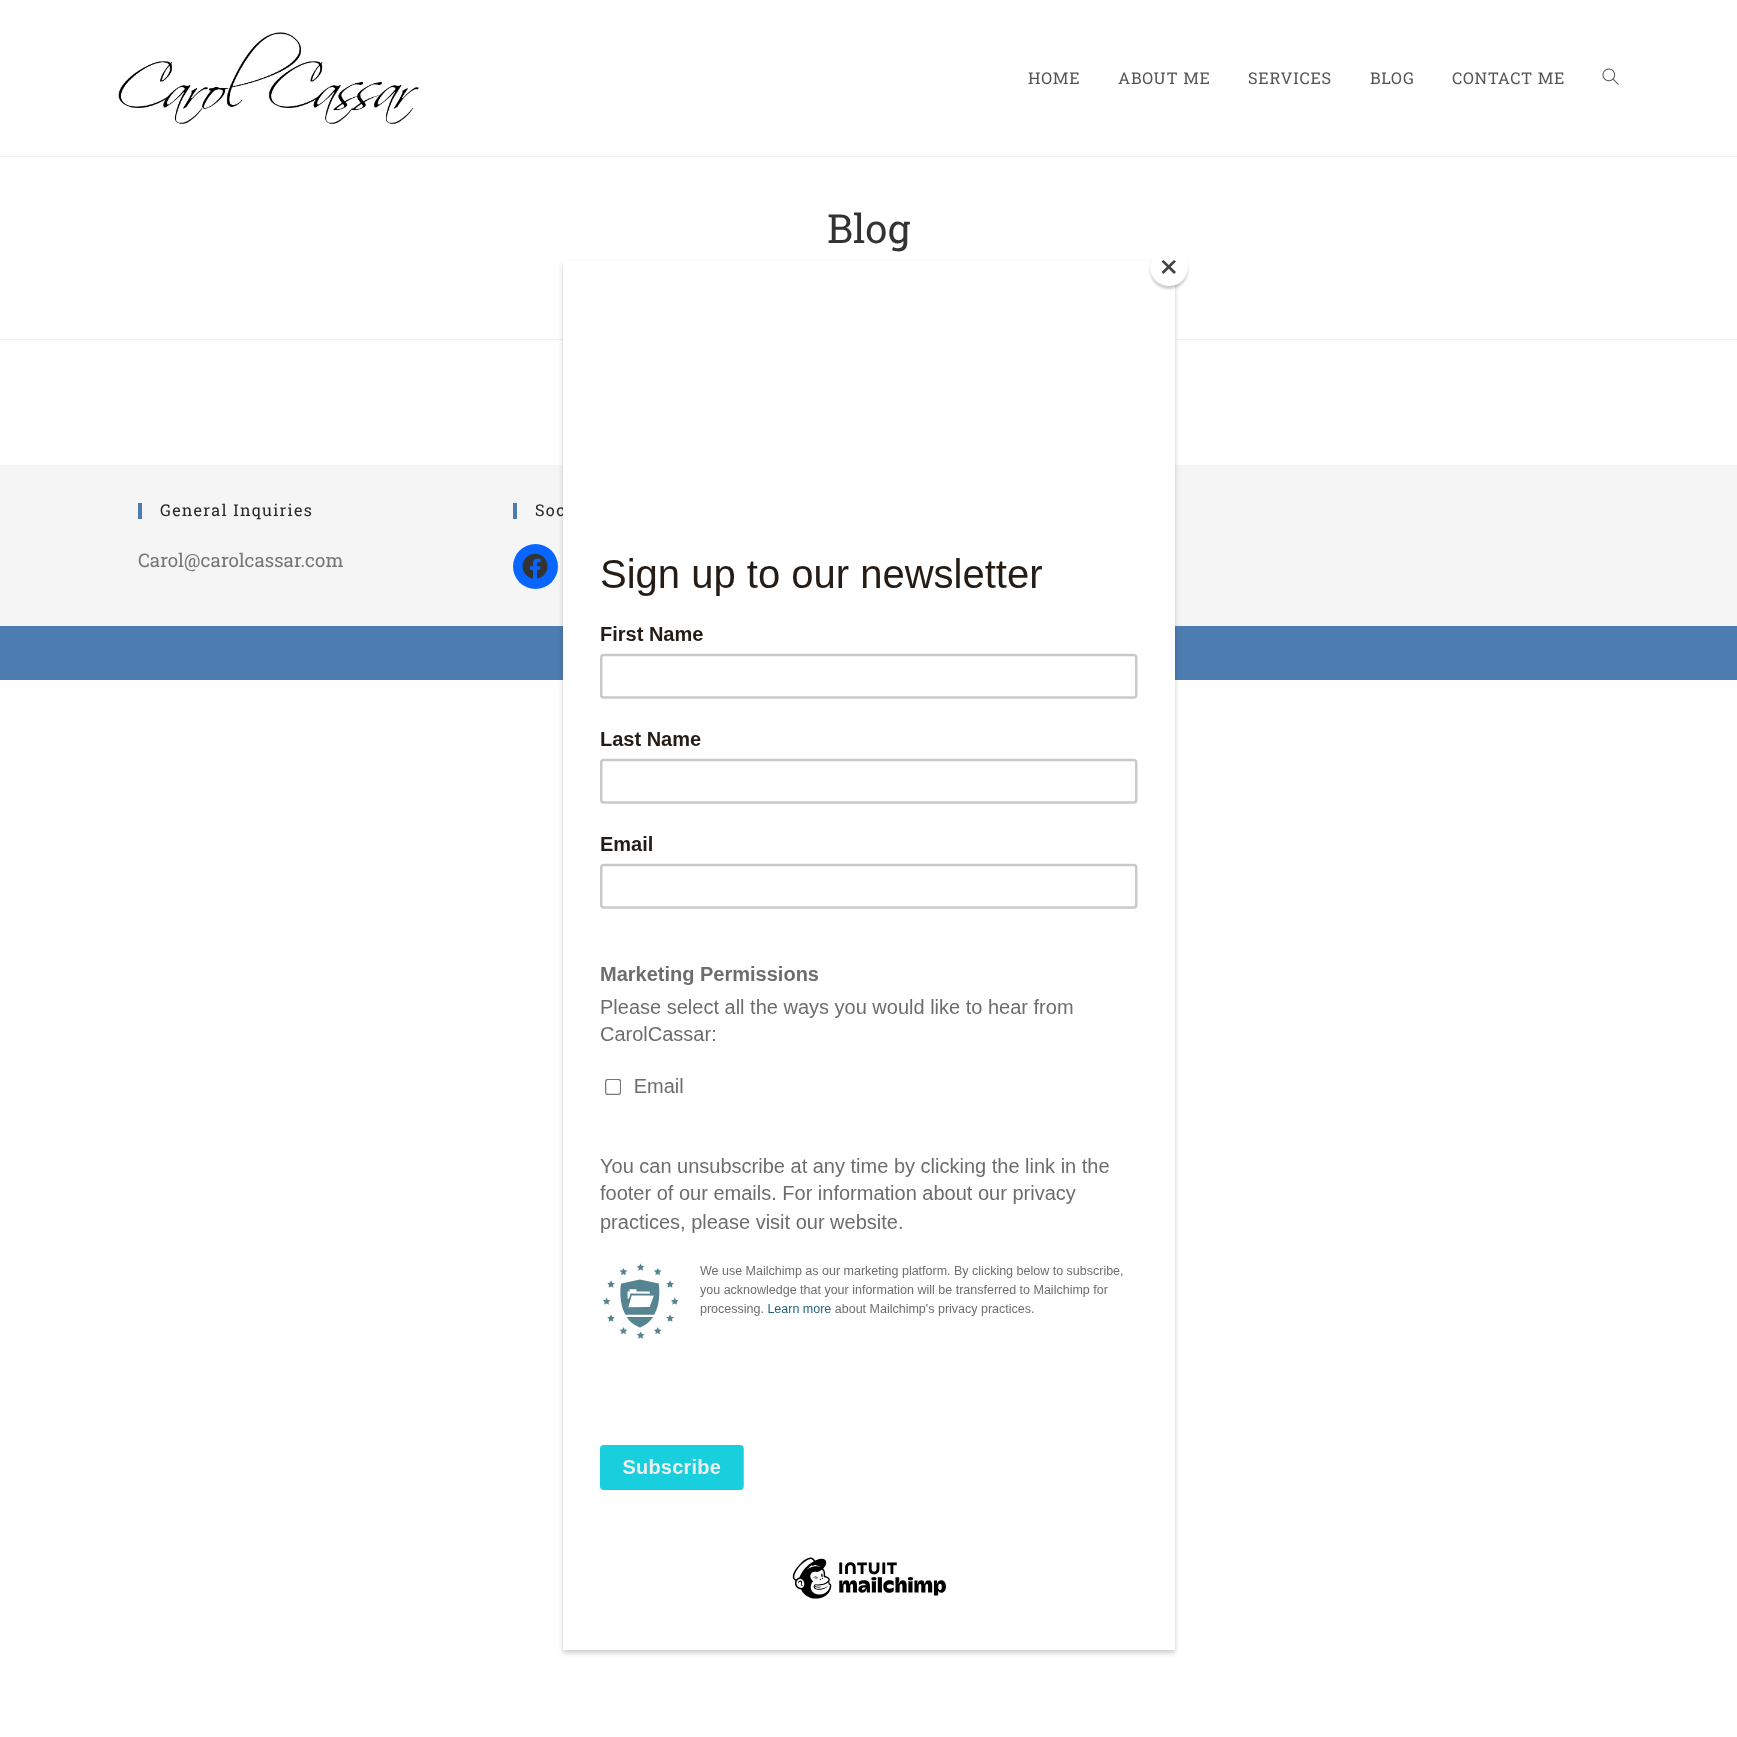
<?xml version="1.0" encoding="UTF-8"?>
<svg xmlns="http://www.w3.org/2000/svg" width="1737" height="1737">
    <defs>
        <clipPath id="clip1"><path d="M 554 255 H 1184 V 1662 H 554 Z M 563 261 H 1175 V 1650 H 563 Z" clip-rule="evenodd"/></clipPath>
        <filter id="blur1" x="-50%" y="-200%" width="200%" height="500%"><feGaussianBlur stdDeviation="2.5"/></filter>
        <filter id="blur2" x="-50%" y="-200%" width="200%" height="500%"><feGaussianBlur stdDeviation="1"/></filter>
    </defs>
    <rect width="100%" height="100%" fill="#FFFFFF"/>
    <rect x="0" y="156" width="1737" height="1" fill="#F1F1F1"/>
    <image x="118" y="32" width="301" height="92" href="img_01.png"/>
    <text x="1028" y="84" font-family="Roboto Slab" font-size="16.25" letter-spacing="0.75" fill="#555555">HOME</text>
    <text x="1118" y="84" font-family="Roboto Slab" font-size="16.25" letter-spacing="0.75" fill="#555555">ABOUT ME</text>
    <text x="1248" y="84" font-family="Roboto Slab" font-size="16.25" letter-spacing="0.75" fill="#555555">SERVICES</text>
    <text x="1370" y="84" font-family="Roboto Slab" font-size="16.25" letter-spacing="0.75" fill="#555555">BLOG</text>
    <text x="1452" y="84" font-family="Roboto Slab" font-size="16.25" letter-spacing="0.75" fill="#555555">CONTACT ME</text>
    <image x="1602" y="68" width="17" height="17" href="img_02.png"/>
    <rect x="0" y="339" width="1737" height="1" fill="#F1F1F1"/>
    <text x="827" y="243" font-family="Roboto Slab" font-size="40" fill="#333333">Blog</text>
    <rect x="0" y="465" width="1737" height="161" fill="#F5F5F5"/>
    <rect x="138" y="503" width="4" height="16" fill="#4D7CB0"/>
    <text x="160" y="516" font-family="Roboto Slab" font-size="16.25" letter-spacing="1.25" fill="#292929">General Inquiries</text>
    <text x="138" y="567" font-family="Roboto Slab" font-size="18.75" fill="#777777">Carol@carolcassar.com</text>
    <rect x="513" y="503" width="4" height="16" fill="#4D7CB0"/>
    <text x="535" y="516" font-family="Roboto Slab" font-size="16.25" letter-spacing="1.25" fill="#292929">Soc</text>
    <circle cx="535.5" cy="566.5" r="22.5" fill="#0866FF"/>
    <image x="522" y="553" width="26" height="26" href="img_03.png"/>
    <rect x="0" y="626" width="1737" height="54" fill="#4D7CB0"/>
    <g clip-path="url(#clip1)">
        <rect x="563" y="264" width="612" height="1389" fill="#000000" fill-opacity="0.2" filter="url(#blur1)"/>
    </g>
    <image x="563" y="267" width="612" height="1332" href="img_04.png"/>
    <rect x="1150" y="251" width="38" height="38" rx="19" fill="#000000" fill-opacity="0.2" filter="url(#blur2)"/>
    <rect x="1150" y="249" width="38" height="37" rx="18.5" fill="#FFFFFF"/>
    <path d="M 1174 260 L 1176 261.5 L 1163.5 274 L 1161.5 272 Z" fill="#414141"/>
    <path d="M 1161.5 261.5 L 1163.5 260 L 1176 272 L 1174 274 Z" fill="#414141"/>
</svg>
